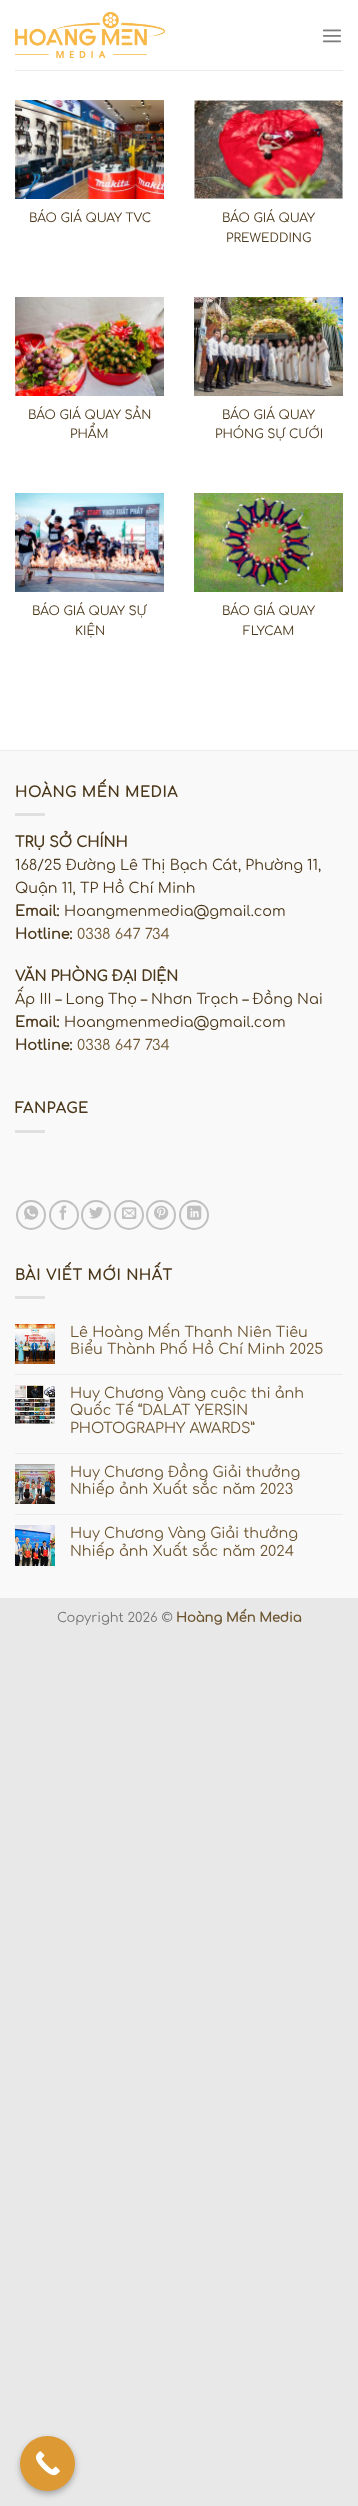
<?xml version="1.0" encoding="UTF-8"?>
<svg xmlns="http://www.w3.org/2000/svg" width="358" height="2506">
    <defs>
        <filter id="blur1" x="-50%" y="-200%" width="200%" height="500%"><feGaussianBlur stdDeviation="3"/></filter>
    </defs>
    <rect width="100%" height="100%" fill="#E8E8E8"/>
    <rect x="0" y="0" width="358" height="750" fill="#FFFFFF"/>
    <image x="15" y="12" width="150" height="46" href="img_01.png"/>
    <image x="322" y="29" width="19" height="14" href="img_02.png"/>
    <rect x="15" y="70" width="328" height="1" fill="#EDEBE8"/>
    <image x="15" y="100" width="149" height="99" href="img_03.png"/>
    <text x="29" y="222" font-family="Comfortaa" font-size="12.25" fill="#4B371A">BÁO GIÁ QUAY TVC</text>
    <image x="194" y="100" width="149" height="99" href="img_04.png"/>
    <text x="222" y="222" font-family="Comfortaa" font-size="12.25" fill="#4B371A">BÁO GIÁ QUAY</text>
    <text x="226" y="242" font-family="Comfortaa" font-size="12.25" fill="#4B371A">PREWEDDING</text>
    <image x="15" y="297" width="149" height="99" href="img_05.png"/>
    <text x="28" y="419" font-family="Comfortaa" font-size="12.25" fill="#4B371A">BÁO GIÁ QUAY SẢN</text>
    <text x="70" y="438" font-family="Comfortaa" font-size="12.25" fill="#4B371A">PHẨM</text>
    <image x="194" y="297" width="149" height="99" href="img_06.png"/>
    <text x="222" y="419" font-family="Comfortaa" font-size="12.25" fill="#4B371A">BÁO GIÁ QUAY</text>
    <text x="215" y="438" font-family="Comfortaa" font-size="12.25" fill="#4B371A">PHÓNG SỰ CƯỚI</text>
    <image x="15" y="493" width="149" height="99" href="img_07.png"/>
    <text x="32" y="615" font-family="Comfortaa" font-size="12.25" fill="#4B371A">BÁO GIÁ QUAY SỰ</text>
    <text x="75" y="635" font-family="Comfortaa" font-size="12.25" fill="#4B371A">KIỆN</text>
    <image x="194" y="493" width="149" height="99" href="img_08.png"/>
    <text x="222" y="615" font-family="Comfortaa" font-size="12.25" fill="#4B371A">BÁO GIÁ QUAY</text>
    <text x="243" y="635" font-family="Comfortaa" font-size="12.25" fill="#4B371A">FLYCAM</text>
    <rect x="0" y="751" width="358" height="847" fill="#F9F9F9"/>
    <rect x="0" y="750" width="358" height="1" fill="#EDEDED"/>
    <text x="15" y="797" font-family="Comfortaa" font-size="14.4" font-weight="700" letter-spacing="0.75" fill="#4B371A">HOÀNG MẾN MEDIA</text>
    <rect x="15" y="813" width="30" height="3" fill="#E0E0E0"/>
    <text x="15" y="847" font-family="Comfortaa" font-size="14.4" font-weight="700" fill="#4B371A">TRỤ SỞ CHÍNH</text>
    <text font-family="Comfortaa" font-size="14.4" fill="#4B371A">
        <tspan x="15" y="870">168/25 Đường Lê Thị Bạch Cát, Phường 11,</tspan>
        <tspan x="15" y="893">Quận 11, TP Hồ Chí Minh</tspan>
    </text>
    <text x="15" y="916" font-family="Comfortaa" font-size="14.4" font-weight="700" fill="#4B371A">Email:</text>
    <text x="64" y="916" font-family="Comfortaa" font-size="14.4" fill="#4B371A">Hoangmenmedia@gmail.com</text>
    <text x="15" y="939" font-family="Comfortaa" font-size="14.4" font-weight="700" fill="#4B371A">Hotline:</text>
    <text x="77" y="939" font-family="Comfortaa" font-size="14.4" fill="#6D5531">0338 647 734</text>
    <text x="15" y="981" font-family="Comfortaa" font-size="14.4" font-weight="700" fill="#4B371A">VĂN PHÒNG ĐẠI DIỆN</text>
    <text x="15" y="1004" font-family="Comfortaa" font-size="14.4" fill="#4B371A">Ấp III – Long Thọ – Nhơn Trạch – Đồng Nai</text>
    <text x="15" y="1027" font-family="Comfortaa" font-size="14.4" font-weight="700" fill="#4B371A">Email:</text>
    <text x="64" y="1027" font-family="Comfortaa" font-size="14.4" fill="#4B371A">Hoangmenmedia@gmail.com</text>
    <text x="15" y="1050" font-family="Comfortaa" font-size="14.4" font-weight="700" fill="#4B371A">Hotline:</text>
    <text x="77" y="1050" font-family="Comfortaa" font-size="14.4" fill="#6D5531">0338 647 734</text>
    <text x="15" y="1113" font-family="Comfortaa" font-size="14.4" font-weight="700" letter-spacing="0.75" fill="#4B371A">FANPAGE</text>
    <rect x="15" y="1130" width="30" height="3" fill="#E0E0E0"/>
    <circle cx="31" cy="1215" r="14" fill="none" stroke="#C0C0C0" stroke-width="2"/>
    <image x="24" y="1205" width="15" height="15" href="img_09.png"/>
    <circle cx="64" cy="1215" r="14" fill="none" stroke="#C0C0C0" stroke-width="2"/>
    <image x="59" y="1205" width="8" height="15" href="img_10.png"/>
    <circle cx="96" cy="1215" r="14" fill="none" stroke="#C0C0C0" stroke-width="2"/>
    <image x="89" y="1207" width="14" height="12" href="img_11.png"/>
    <circle cx="129" cy="1215" r="14" fill="none" stroke="#C0C0C0" stroke-width="2"/>
    <image x="122" y="1207" width="15" height="12" href="img_12.png"/>
    <circle cx="161" cy="1215" r="14" fill="none" stroke="#C0C0C0" stroke-width="2"/>
    <image x="154" y="1205" width="15" height="15" href="img_13.png"/>
    <circle cx="194" cy="1215" r="14" fill="none" stroke="#C0C0C0" stroke-width="2"/>
    <image x="187" y="1205" width="15" height="15" href="img_14.png"/>
    <text x="15" y="1280" font-family="Comfortaa" font-size="14.4" font-weight="700" letter-spacing="0.75" fill="#4B371A">BÀI VIẾT MỚI NHẤT</text>
    <rect x="15" y="1296" width="30" height="3" fill="#E0E0E0"/>
    <image x="15" y="1324" width="40" height="40" href="img_15.png"/>
    <text font-family="Comfortaa" font-size="14.4" fill="#6D5531">
        <tspan x="70" y="1337">Lê Hoàng Mến Thanh Niên Tiêu</tspan>
        <tspan x="70" y="1354">Biểu Thành Phố Hồ Chí Minh 2025</tspan>
    </text>
    <rect x="15" y="1374" width="328" height="1" fill="#ECECEC"/>
    <image x="15" y="1385" width="40" height="40" href="img_16.png"/>
    <text font-family="Comfortaa" font-size="14.4" fill="#6D5531">
        <tspan x="70" y="1398">Huy Chương Vàng cuộc thi ảnh</tspan>
        <tspan x="70" y="1415">Quốc Tế “DALAT YERSIN</tspan>
        <tspan x="70" y="1433">PHOTOGRAPHY AWARDS”</tspan>
    </text>
    <rect x="15" y="1453" width="328" height="1" fill="#ECECEC"/>
    <image x="15" y="1464" width="40" height="40" href="img_17.png"/>
    <text font-family="Comfortaa" font-size="14.4" fill="#6D5531">
        <tspan x="70" y="1477">Huy Chương Đồng Giải thưởng</tspan>
        <tspan x="70" y="1494">Nhiếp ảnh Xuất sắc năm 2023</tspan>
    </text>
    <rect x="15" y="1514" width="328" height="1" fill="#ECECEC"/>
    <image x="15" y="1525" width="40" height="41" href="img_18.png"/>
    <text font-family="Comfortaa" font-size="14.4" fill="#6D5531">
        <tspan x="70" y="1538">Huy Chương Vàng Giải thưởng</tspan>
        <tspan x="70" y="1556">Nhiếp ảnh Xuất sắc năm 2024</tspan>
    </text>
    <text x="57" y="1622" font-family="Comfortaa" font-size="13" fill="#747474">Copyright 2026 ©</text>
    <text x="176" y="1622" font-family="Comfortaa" font-size="13" font-weight="700" fill="#6D5531">Hoàng Mến Media</text>
    <rect x="20" y="2439" width="55" height="55" rx="27.5" fill="#000000" fill-opacity="0.3" filter="url(#blur1)"/>
    <circle cx="47.5" cy="2463.5" r="27.5" fill="#DD9933"/>
    <image x="35" y="2451" width="25" height="25" href="img_19.png"/>
</svg>
